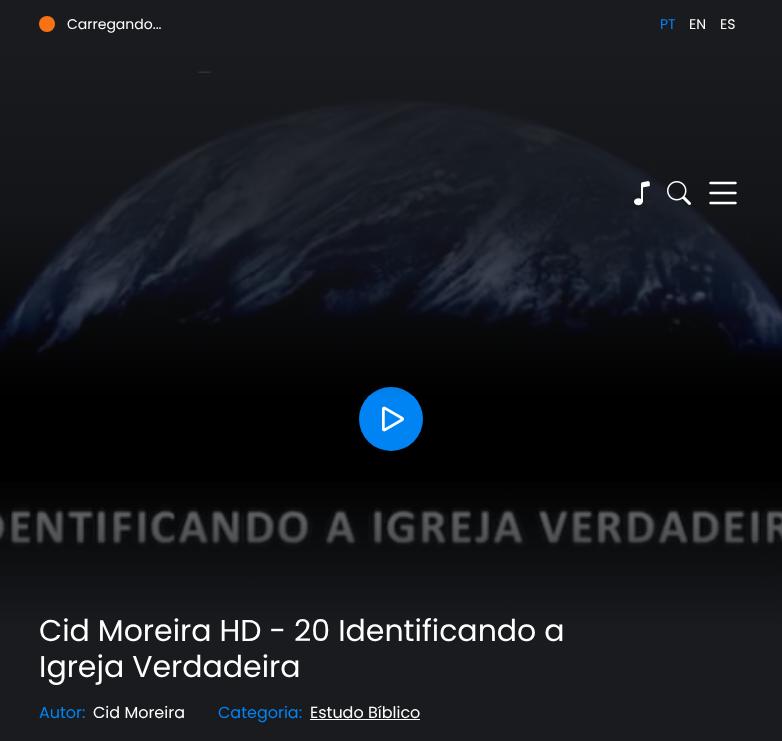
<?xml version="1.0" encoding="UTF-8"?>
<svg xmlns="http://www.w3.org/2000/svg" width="782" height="741">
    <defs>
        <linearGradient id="g1" gradientUnits="userSpaceOnUse" x1="391" y1="401" x2="391" y2="40"><stop offset="0" stop-color="#191B1F" stop-opacity="0"/><stop offset="0.5" stop-color="#191B1F" stop-opacity="0.75"/><stop offset="1" stop-color="#191B1F"/></linearGradient>
        <linearGradient id="g2" gradientUnits="userSpaceOnUse" x1="391" y1="469" x2="391" y2="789"><stop offset="0" stop-color="#191B1F" stop-opacity="0"/><stop offset="0.5" stop-color="#191B1F"/><stop offset="1" stop-color="#191B1F"/></linearGradient>
    </defs>
    <rect width="100%" height="100%" fill="#191B1F"/>
    <circle cx="47" cy="24" r="8" fill="#F97316"/>
    <text x="67" y="29" font-family="Poppins" font-size="14" fill="#FFFFFF">Carregando...</text>
    <text x="660" y="29" font-family="Poppins" font-size="14" fill="#0084F4">PT</text>
    <text x="689" y="29" font-family="Poppins" font-size="14" fill="#FFFFFF">EN</text>
    <text x="720" y="29" font-family="Poppins" font-size="14" fill="#FFFFFF">ES</text>
    <rect x="0" y="48" width="782" height="580" fill="#000000"/>
    <image x="0" y="95" width="782" height="453" href="img_05.png"/>
    <circle cx="391" cy="419" r="32" fill="#0084F4"/>
    <rect x="0" y="48" width="782" height="348" fill="url(#g1)"/>
    <image x="197" y="71" width="15" height="2" href="img_01.png"/>
    <image x="634" y="181" width="16" height="25" href="img_02.png"/>
    <image x="667" y="181" width="24" height="24" href="img_03.png"/>
    <image x="709" y="181" width="28" height="24" href="img_04.png"/>
    <image x="382" y="406" width="22" height="26" href="img_06.png"/>
    <rect x="0" y="482" width="782" height="146" fill="url(#g2)"/>
    <text font-family="Poppins" font-size="30" fill="#FFFFFF">
        <tspan x="39" y="641">Cid Moreira HD - 20 Identificando a</tspan>
        <tspan x="39" y="677">Igreja Verdadeira</tspan>
    </text>
    <text x="39" y="718" font-family="Poppins" font-size="16" fill="#0084F4">Autor:</text>
    <text x="93" y="718" font-family="Poppins" font-size="16" fill="#FFFFFF">Cid Moreira</text>
    <text x="218" y="718" font-family="Poppins" font-size="16" fill="#0084F4">Categoria:</text>
    <text x="310" y="718" font-family="Poppins" font-size="16" fill="#FFFFFF">Estudo Bíblico</text>
    <rect x="310" y="719" width="110" height="1" fill="#FFFFFF"/>
</svg>
